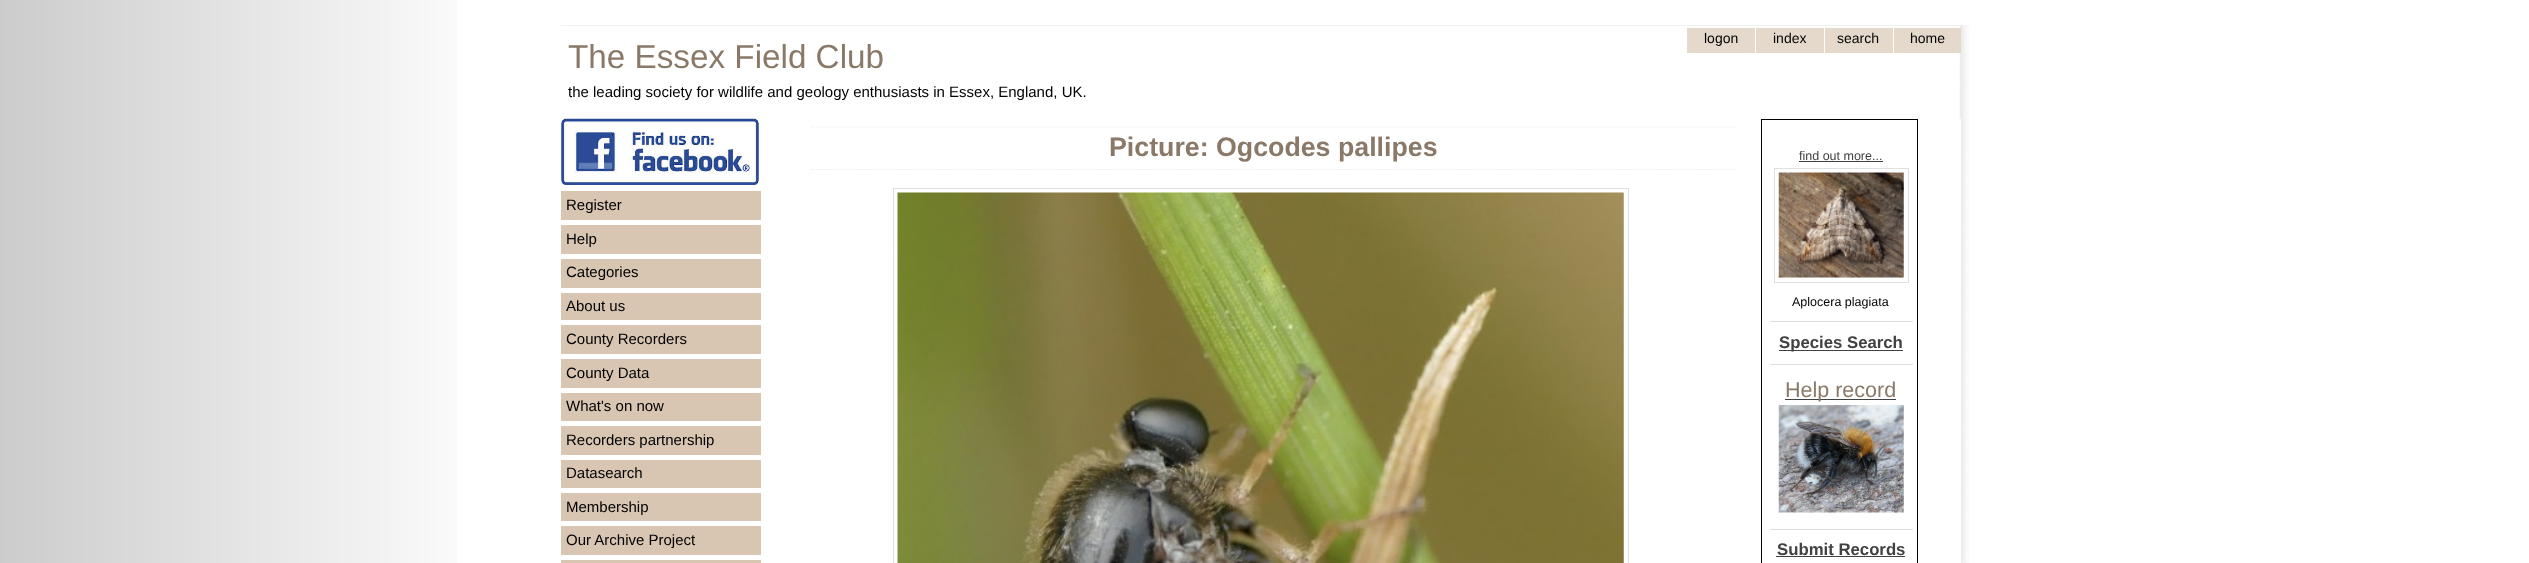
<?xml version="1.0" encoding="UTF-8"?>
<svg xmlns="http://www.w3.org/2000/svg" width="2529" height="563">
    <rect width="100%" height="100%" fill="#FFFFFF"/>
    <image x="0" y="0" width="457" height="563" href="img_01.png"/>
    <image x="1959" y="25" width="11" height="538" href="img_02.png"/>
    <rect x="561" y="25" width="1400" height="1" fill="#F2F2F2"/>
    <rect x="1687" y="28" width="68" height="25" fill="#E5D9CC"/>
    <text x="1704" y="43" font-family="Liberation Sans" font-size="14" fill="#000000">logon</text>
    <rect x="1756" y="28" width="68" height="25" fill="#E5D9CC"/>
    <text x="1773" y="43" font-family="Liberation Sans" font-size="14" fill="#000000">index</text>
    <rect x="1825" y="28" width="68" height="25" fill="#E5D9CC"/>
    <text x="1837" y="43" font-family="Liberation Sans" font-size="14" fill="#000000">search</text>
    <rect x="1894" y="28" width="67" height="25" fill="#E5D9CC"/>
    <text x="1910" y="43" font-family="Liberation Sans" font-size="14" fill="#000000">home</text>
    <text x="568" y="68" font-family="Liberation Sans" font-size="33.25" fill="#8A7968">The Essex Field Club</text>
    <text x="568" y="97" font-family="Liberation Sans" font-size="15" fill="#000000">the leading society for wildlife and geology enthusiasts in Essex, England, UK.</text>
    <image x="561" y="118" width="198" height="67" href="img_03.png"/>
    <rect x="561" y="191" width="200" height="29" fill="#D8C6B2"/>
    <text x="566" y="210" font-family="Liberation Sans" font-size="15" fill="#000000">Register</text>
    <rect x="561" y="225" width="200" height="29" fill="#D8C6B2"/>
    <text x="566" y="244" font-family="Liberation Sans" font-size="15" fill="#000000">Help</text>
    <rect x="561" y="259" width="200" height="29" fill="#D8C6B2"/>
    <text x="566" y="277" font-family="Liberation Sans" font-size="15" fill="#000000">Categories</text>
    <rect x="561" y="293" width="200" height="27" fill="#D8C6B2"/>
    <text x="566" y="311" font-family="Liberation Sans" font-size="15" fill="#000000">About us</text>
    <rect x="561" y="325" width="200" height="29" fill="#D8C6B2"/>
    <text x="566" y="344" font-family="Liberation Sans" font-size="15" fill="#000000">County Recorders</text>
    <rect x="561" y="359" width="200" height="29" fill="#D8C6B2"/>
    <text x="566" y="378" font-family="Liberation Sans" font-size="15" fill="#000000">County Data</text>
    <rect x="561" y="393" width="200" height="28" fill="#D8C6B2"/>
    <text x="566" y="411" font-family="Liberation Sans" font-size="15" fill="#000000">What's on now</text>
    <rect x="561" y="426" width="200" height="29" fill="#D8C6B2"/>
    <text x="566" y="445" font-family="Liberation Sans" font-size="15" fill="#000000">Recorders partnership</text>
    <rect x="561" y="460" width="200" height="28" fill="#D8C6B2"/>
    <text x="566" y="478" font-family="Liberation Sans" font-size="15" fill="#000000">Datasearch</text>
    <rect x="561" y="493" width="200" height="28" fill="#D8C6B2"/>
    <text x="566" y="512" font-family="Liberation Sans" font-size="15" fill="#000000">Membership</text>
    <rect x="561" y="526" width="200" height="29" fill="#D8C6B2"/>
    <text x="566" y="545" font-family="Liberation Sans" font-size="15" fill="#000000">Our Archive Project</text>
    <rect x="561" y="560" width="200" height="3" fill="#D8C6B2"/>
    <path d="M 811 127 H 1736" fill="none" stroke="#F2ECE5" stroke-width="1.2" stroke-dasharray="1.25 1.25"/>
    <path d="M 811 169.5 H 1736" fill="none" stroke="#F2ECE5" stroke-width="1.2" stroke-dasharray="1.25 1.25"/>
    <text x="1109" y="156" font-family="Liberation Sans" font-size="26.75" font-weight="700" fill="#8A7968">Picture: Ogcodes pallipes</text>
    <rect x="893.5" y="188.5" width="735" height="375" fill="none" stroke="#DFDFDF"/>
    <image x="897" y="192" width="727" height="371" href="img_04.png"/>
    <rect x="1959" y="119" width="2" height="444" fill="#FFFFFF"/>
    <rect x="1761.5" y="119.5" width="156" height="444" fill="none" stroke="#000000"/>
    <text x="1799" y="160" font-family="Liberation Sans" font-size="12.5" fill="#414141">find out more...</text>
    <rect x="1799" y="161" width="84" height="1" fill="#414141"/>
    <rect x="1774.5" y="168.5" width="134" height="114" fill="none" stroke="#DFDFDF"/>
    <image x="1778" y="172" width="126" height="106" href="img_05.png"/>
    <text x="1792" y="306" font-family="Liberation Sans" font-size="12.5" fill="#000000">Aplocera plagiata</text>
    <rect x="1770" y="321" width="143" height="1" fill="#DFDFDF"/>
    <rect x="1779" y="350" width="124" height="1" fill="#414141"/>
    <text x="1779" y="348" font-family="Liberation Sans" font-size="16.75" font-weight="700" fill="#414141">Species Search</text>
    <rect x="1770" y="364" width="143" height="1" fill="#DFDFDF"/>
    <rect x="1785" y="399" width="111" height="1" fill="#414141"/>
    <text x="1785" y="397" font-family="Liberation Sans" font-size="21.5" fill="#8A7968">Help record</text>
    <image x="1778" y="405" width="126" height="108" href="img_06.png"/>
    <rect x="1770" y="529" width="143" height="1" fill="#DFDFDF"/>
    <text x="1777" y="555" font-family="Liberation Sans" font-size="16.75" font-weight="700" fill="#414141">Submit Records</text>
    <rect x="1776" y="556" width="129" height="1" fill="#414141"/>
</svg>
